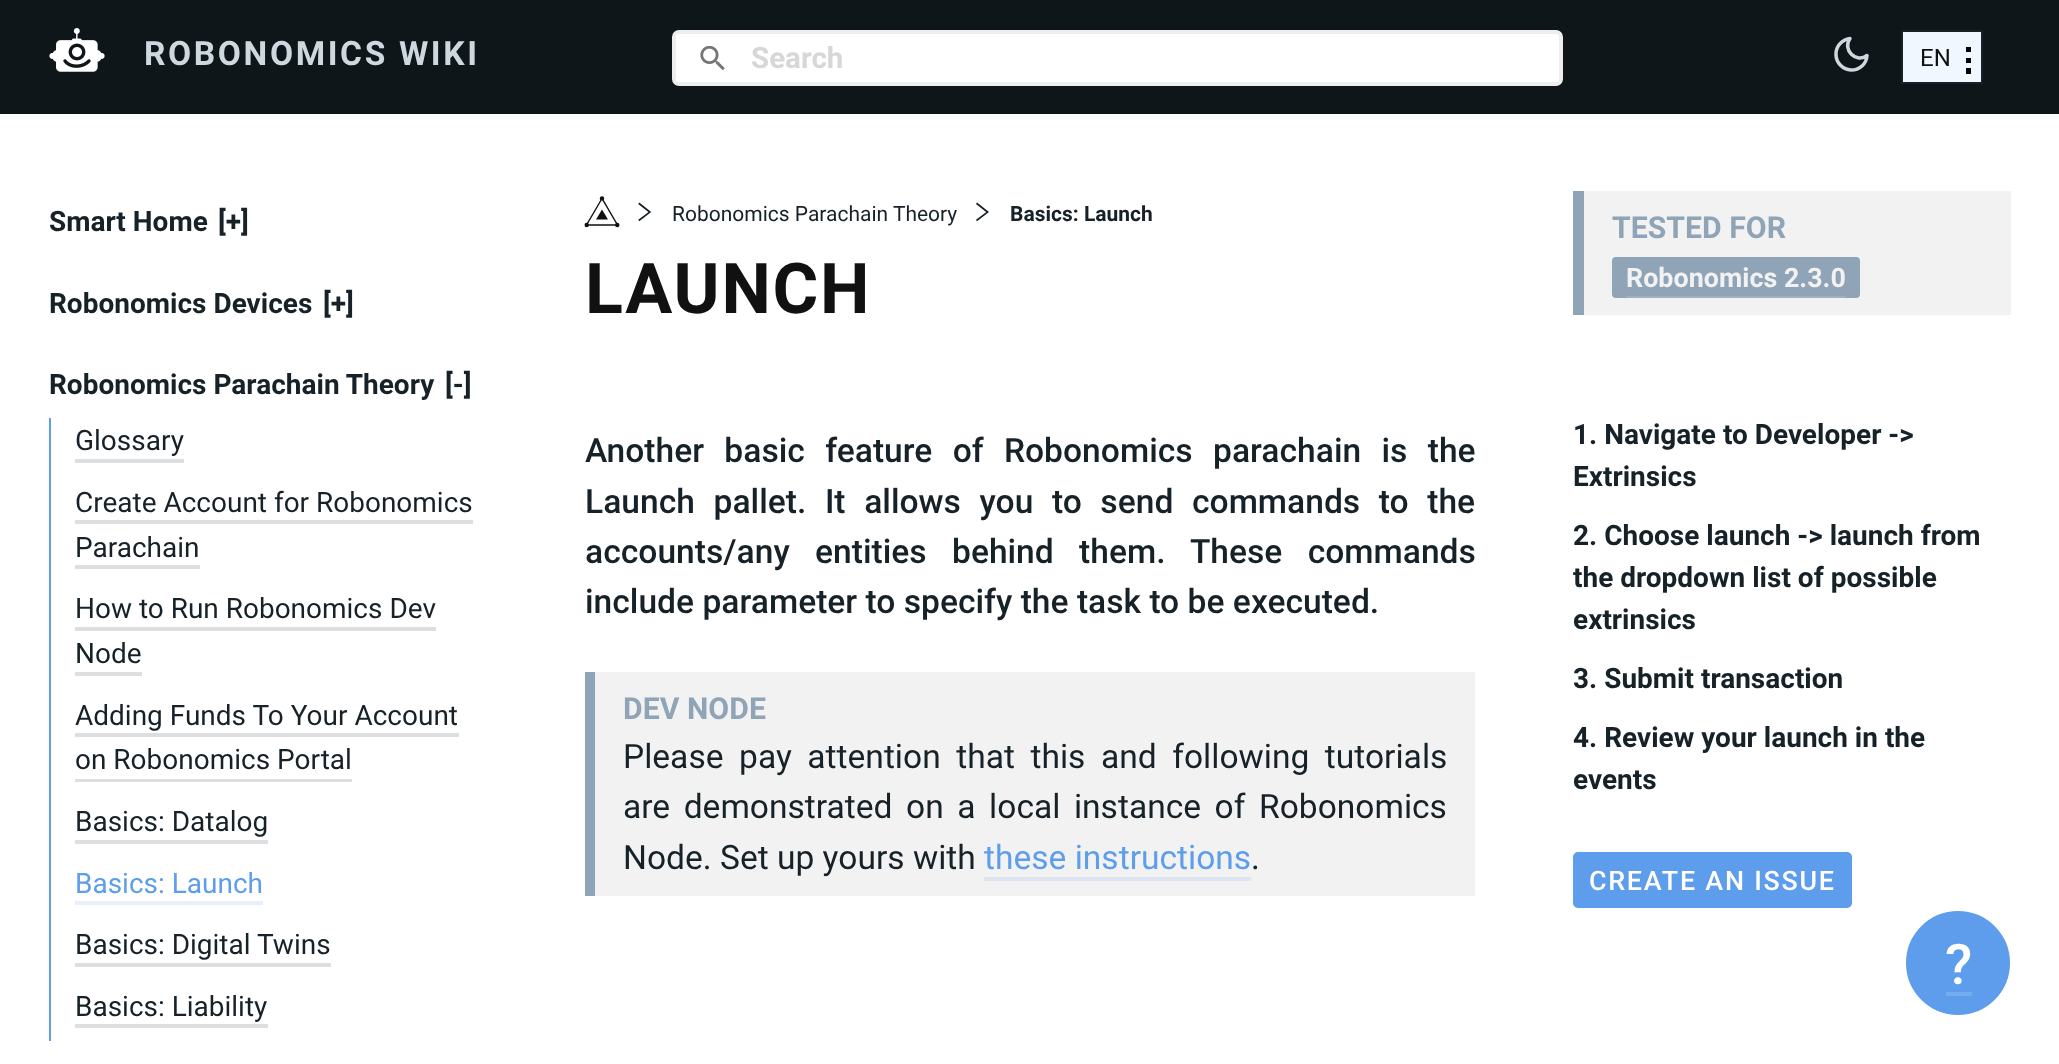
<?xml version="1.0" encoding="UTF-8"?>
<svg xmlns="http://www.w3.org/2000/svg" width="2059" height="1064">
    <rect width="100%" height="100%" fill="#FFFFFF"/>
    <rect x="0" y="0" width="2059" height="114" fill="#0E161A"/>
    <image x="49" y="28" width="56" height="44" href="img_01.png"/>
    <text x="144" y="65" font-family="Roboto" font-size="33.6" font-weight="700" letter-spacing="2.6" fill="#CED8DE">ROBONOMICS WIKI</text>
    <rect x="674" y="32" width="887" height="52" rx="5" fill="#FFFFFF" stroke="#EEEEEE" stroke-width="4"/>
    <image x="700" y="46" width="25" height="25" href="img_02.png"/>
    <text x="751" y="68" font-family="Roboto" font-size="29.5" font-weight="700" fill="#D7D7D7">Search</text>
    <path d="M 1867 55.5 C 1866.5 64 1859.5 70 1851 70 C 1843 69.5 1836 63 1836 54.5 C 1835.5 46.5 1842 39.5 1850 38.5 C 1842 49.5 1856 64 1867 55.5 Z" fill="none" stroke="#CED8DE" stroke-width="3.5" stroke-linecap="round" stroke-linejoin="round"/>
    <rect x="1903" y="32" width="78" height="50" fill="#F0F7FF"/>
    <rect x="1966" y="47" width="5" height="5" fill="#000000"/>
    <rect x="1966" y="58" width="5" height="5" fill="#000000"/>
    <rect x="1966" y="68" width="5" height="6" fill="#000000"/>
    <rect x="1902" y="31" width="80" height="52" fill="none" stroke="#162128" stroke-width="2"/>
    <text x="1920" y="66" font-family="Roboto" font-size="24" fill="#111111">EN</text>
    <text x="49" y="231" font-family="Roboto" font-size="28" font-weight="700" fill="#162128">Smart Home</text>
    <text x="218" y="231" font-family="Roboto" font-size="28" font-weight="700" fill="#162128">[+]</text>
    <text x="49" y="313" font-family="Roboto" font-size="28" font-weight="700" fill="#162128">Robonomics Devices</text>
    <text x="323" y="313" font-family="Roboto" font-size="28" font-weight="700" fill="#162128">[+]</text>
    <text x="49" y="394" font-family="Roboto" font-size="28" font-weight="700" fill="#162128">Robonomics Parachain Theory</text>
    <text x="445" y="394" font-family="Roboto" font-size="28" font-weight="700" fill="#162128">[-]</text>
    <rect x="49" y="418" width="2" height="623" fill="#5D9DEB"/>
    <text x="75" y="450" font-family="Roboto" font-size="28" fill="#162128">Glossary</text>
    <rect x="75" y="459" width="109" height="4" fill="#DCDEDF"/>
    <text x="75" y="512" font-family="Roboto" font-size="28" fill="#162128">Create Account for Robonomics</text>
    <rect x="75" y="520" width="398" height="4" fill="#DCDEDF"/>
    <text x="75" y="557" font-family="Roboto" font-size="28" fill="#162128">Parachain</text>
    <rect x="75" y="565" width="125" height="4" fill="#DCDEDF"/>
    <text x="75" y="618" font-family="Roboto" font-size="28" fill="#162128">How to Run Robonomics Dev</text>
    <rect x="75" y="627" width="361" height="4" fill="#DCDEDF"/>
    <text x="75" y="663" font-family="Roboto" font-size="28" fill="#162128">Node</text>
    <rect x="75" y="672" width="67" height="4" fill="#DCDEDF"/>
    <text x="75" y="725" font-family="Roboto" font-size="28" fill="#162128">Adding Funds To Your Account</text>
    <rect x="75" y="733" width="384" height="4" fill="#DCDEDF"/>
    <text x="75" y="769" font-family="Roboto" font-size="28" fill="#162128">on Robonomics Portal</text>
    <rect x="75" y="779" width="277" height="3" fill="#DCDEDF"/>
    <text x="75" y="831" font-family="Roboto" font-size="28" fill="#162128">Basics: Datalog</text>
    <rect x="75" y="840" width="193" height="4" fill="#DCDEDF"/>
    <text x="75" y="893" font-family="Roboto" font-size="28" fill="#5D9DEB">Basics: Launch</text>
    <rect x="75" y="901" width="188" height="4" fill="#E7F0FC"/>
    <text x="75" y="954" font-family="Roboto" font-size="28" fill="#162128">Basics: Digital Twins</text>
    <rect x="75" y="963" width="256" height="4" fill="#DCDEDF"/>
    <text x="75" y="1016" font-family="Roboto" font-size="28" fill="#162128">Basics: Liability</text>
    <rect x="75" y="1024" width="193" height="4" fill="#DCDEDF"/>
    <path d="M 602 209.5 L 596 219.5 H 608 Z" fill="#111111"/>
    <path d="M 602 198.5 L 586.5 225 H 617.5 Z" fill="none" stroke="#111111" stroke-width="1.4"/>
    <circle cx="602" cy="198.4" r="2.2" fill="#111111"/>
    <circle cx="617.3" cy="225" r="2.2" fill="#111111"/>
    <circle cx="586.7" cy="225" r="2.2" fill="#111111"/>
    <image x="638" y="202" width="13" height="20" href="img_03.png"/>
    <text x="672" y="221" font-family="Roboto" font-size="21" fill="#162128">Robonomics Parachain Theory</text>
    <image x="976" y="202" width="13" height="20" href="img_04.png"/>
    <text x="1010" y="221" font-family="Roboto" font-size="21" font-weight="700" fill="#162128">Basics: Launch</text>
    <text x="585" y="313" font-family="Roboto" font-size="70" font-weight="700" letter-spacing="1.75" fill="#111111">LAUNCH</text>
    <text font-family="Roboto" font-size="33.6" font-weight="500" fill="#162128">
        <tspan x="585" y="462" word-spacing="12">Another basic feature of Robonomics parachain is the</tspan>
        <tspan x="585" y="513" word-spacing="10.25">Launch pallet. It allows you to send commands to the</tspan>
        <tspan x="585" y="563" word-spacing="17">accounts/any entities behind them. These commands</tspan>
        <tspan x="585" y="613">include parameter to specify the task to be executed.</tspan>
    </text>
    <rect x="595" y="672" width="880" height="224" fill="#F2F2F2"/>
    <rect x="585" y="672" width="10" height="224" fill="#90A4B7"/>
    <text x="623" y="719" font-family="Roboto" font-size="30.25" font-weight="700" fill="#90A4B7">DEV NODE</text>
    <text font-family="Roboto" font-size="33.6" fill="#162128">
        <tspan x="623" y="768" word-spacing="7.25">Please pay attention that this and following tutorials</tspan>
        <tspan x="623" y="818" word-spacing="5.25">are demonstrated on a local instance of Robonomics</tspan>
        <tspan x="623" y="869">Node. Set up yours with</tspan>
    </text>
    <text x="984" y="869" font-family="Roboto" font-size="33.6" fill="#5D9DEB">these instructions</text>
    <rect x="984" y="877" width="267" height="4" fill="#DCE5F1"/>
    <text x="1251" y="869" font-family="Roboto" font-size="33.6" fill="#162128">.</text>
    <rect x="1584" y="191" width="427" height="124" fill="#F2F2F2"/>
    <rect x="1573" y="191" width="11" height="124" fill="#90A4B7"/>
    <text x="1612" y="238" font-family="Roboto" font-size="30.25" font-weight="700" fill="#90A4B7">TESTED FOR</text>
    <rect x="1612" y="257" width="248" height="41" rx="4" fill="#90A4B7"/>
    <rect x="1626" y="296" width="220" height="2" fill="#9FB0C0"/>
    <text x="1626" y="287" font-family="Roboto" font-size="26.9" font-weight="700" fill="#F2F2F2">Robonomics 2.3.0</text>
    <text font-family="Roboto" font-size="28" font-weight="700" fill="#162128">
        <tspan x="1573" y="444">1. Navigate to Developer -&gt;</tspan>
        <tspan x="1573" y="486">Extrinsics</tspan>
    </text>
    <text font-family="Roboto" font-size="28" font-weight="700" fill="#162128">
        <tspan x="1573" y="545">2. Choose launch -&gt; launch from</tspan>
        <tspan x="1573" y="587">the dropdown list of possible</tspan>
        <tspan x="1573" y="629">extrinsics</tspan>
    </text>
    <text x="1573" y="688" font-family="Roboto" font-size="28" font-weight="700" fill="#162128">3. Submit transaction</text>
    <text font-family="Roboto" font-size="28" font-weight="700" fill="#162128">
        <tspan x="1573" y="747">4. Review your launch in the</tspan>
        <tspan x="1573" y="789">events</tspan>
    </text>
    <rect x="1574" y="853" width="277" height="54" rx="4" fill="#5D9DEB" stroke="#5D9DEB" stroke-width="2"/>
    <text x="1589" y="890" font-family="Roboto" font-size="26.9" font-weight="500" letter-spacing="1.75" fill="#FFFFFF">CREATE AN ISSUE</text>
    <circle cx="1958" cy="963" r="54" fill="#5D9DEB" stroke="#FFFFFF" stroke-width="4"/>
    <text x="1945" y="984" font-family="Roboto" font-size="56" font-weight="500" fill="#FFFFFF">?</text>
    <rect x="1946" y="992" width="26" height="4" fill="#75ACEE"/>
</svg>
